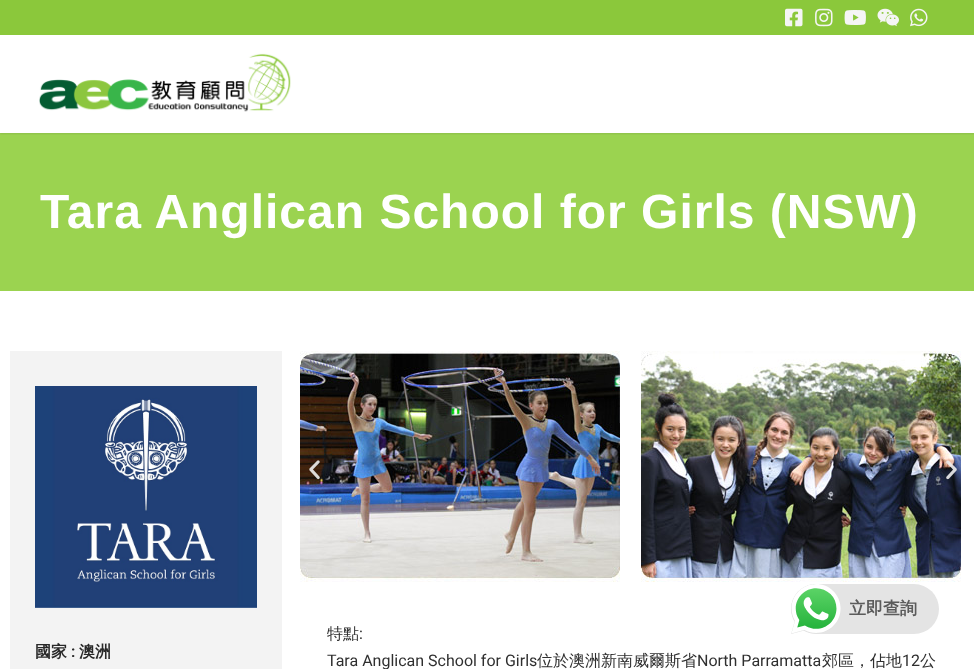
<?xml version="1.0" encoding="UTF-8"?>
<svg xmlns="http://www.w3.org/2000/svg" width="974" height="669">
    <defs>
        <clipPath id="clip1"><rect x="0" y="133" width="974" height="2"/></clipPath>
        <filter id="blur1" x="-50%" y="-200%" width="200%" height="500%"><feGaussianBlur stdDeviation="1"/></filter>
    </defs>
    <rect width="100%" height="100%" fill="#FFFFFF"/>
    <rect x="0" y="0" width="974" height="35" fill="#8BC83B"/>
    <image x="785" y="8" width="18" height="19" href="img_01.png"/>
    <image x="815" y="8" width="18" height="19" href="img_02.png"/>
    <image x="844" y="10" width="22" height="15" href="img_03.png"/>
    <image x="877" y="8" width="22" height="19" href="img_04.png"/>
    <image x="910" y="8" width="18" height="19" href="img_05.png"/>
    <rect x="0" y="133" width="974" height="158" fill="#9BD350"/>
    <g clip-path="url(#clip1)">
        <rect x="0" y="36" width="974" height="98" fill="#000000" fill-opacity="0.1" filter="url(#blur1)"/>
    </g>
    <image x="39" y="53" width="252" height="59" href="img_06.png"/>
    <text x="40" y="228" font-family="Liberation Sans" font-size="48" font-weight="700" letter-spacing="1" fill="#FFFFFF">Tara Anglican School for Girls (NSW)</text>
    <rect x="10" y="351" width="272" height="318" fill="#F3F3F3"/>
    <image x="35" y="386" width="222" height="222" href="img_07.png"/>
    <text x="35" y="657" font-family="WenQuanYi Zen Hei" font-size="16" font-weight="700" fill="#282828">國家</text>
    <text x="71" y="657" font-family="Roboto" font-size="16" font-weight="600" fill="#282828">:</text>
    <text x="79" y="657" font-family="WenQuanYi Zen Hei" font-size="16" font-weight="700" fill="#282828">澳洲</text>
    <image x="300" y="351" width="320" height="231" href="img_08.png"/>
    <image x="641" y="351" width="320" height="231" href="img_09.png"/>
    <image x="309" y="460" width="11" height="20" href="img_10.png"/>
    <image x="946" y="460" width="11" height="20" href="img_11.png"/>
    <text x="327" y="639" font-family="WenQuanYi Zen Hei" font-size="16" font-weight="500" fill="#2F2F2F">特點</text>
    <text x="359" y="639" font-family="Roboto" font-size="16" fill="#2F2F2F">:</text>
    <text x="327" y="666" font-family="Roboto" font-size="16" fill="#2F2F2F">Tara Anglican School for Girls</text>
    <text x="537" y="666" font-family="WenQuanYi Zen Hei" font-size="16" font-weight="500" fill="#2F2F2F">位於澳洲新南威爾斯省</text>
    <text x="697" y="666" font-family="Roboto" font-size="16" fill="#2F2F2F">North Parramatta</text>
    <text x="822" y="666" font-family="WenQuanYi Zen Hei" font-size="16" font-weight="500" fill="#2F2F2F">郊區，佔地</text>
    <text x="902" y="666" font-family="Roboto" font-size="16" fill="#2F2F2F">12</text>
    <text x="920" y="666" font-family="WenQuanYi Zen Hei" font-size="16" font-weight="500" fill="#2F2F2F">公</text>
    <rect x="791" y="584" width="148" height="50" rx="25" fill="#E4E4E4"/>
    <image x="791" y="584" width="50" height="50" href="img_12.png"/>
    <text x="849" y="614" font-family="WenQuanYi Zen Hei" font-size="17" font-weight="700" fill="#5B5B5B">立即查詢</text>
</svg>
